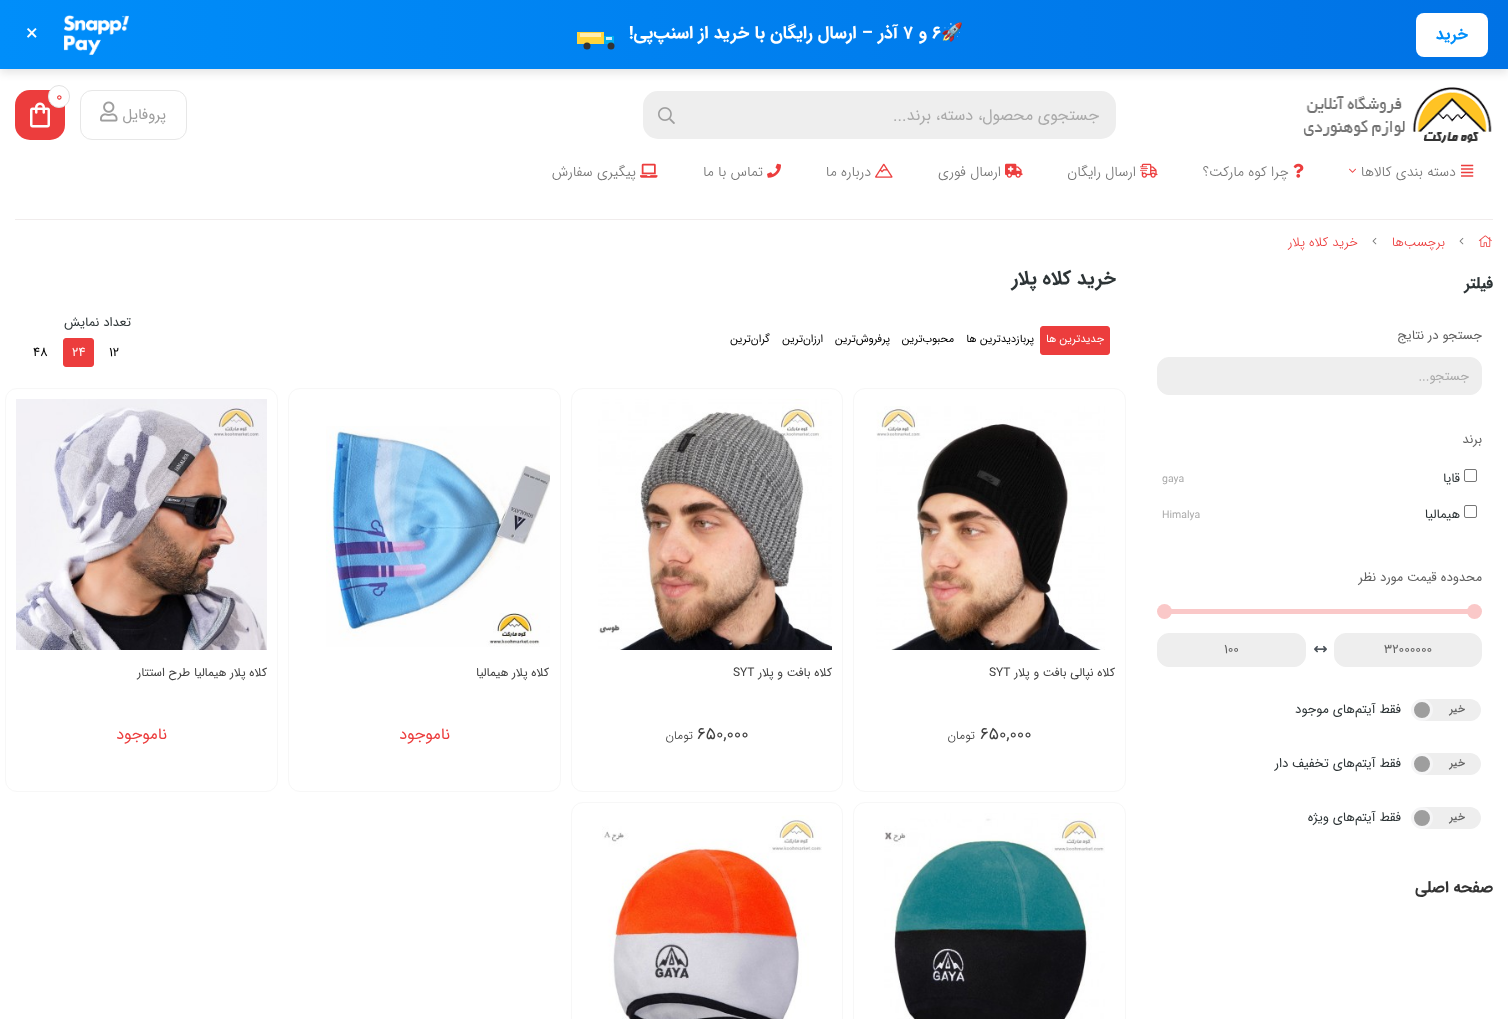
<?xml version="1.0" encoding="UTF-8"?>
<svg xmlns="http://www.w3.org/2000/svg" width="1508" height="1019">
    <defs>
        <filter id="blur1" x="-50%" y="-200%" width="200%" height="500%"><feGaussianBlur stdDeviation="4"/></filter>
        <linearGradient id="g1" gradientUnits="userSpaceOnUse" x1="0" y1="35" x2="1508" y2="34"><stop offset="0" stop-color="#008EFA"/><stop offset="1" stop-color="#0072E5"/></linearGradient>
    </defs>
    <rect width="100%" height="100%" fill="#FFFFFF"/>
    <rect x="15" y="90" width="50" height="50" rx="15" fill="#EC3D3D"/>
    <image x="30" y="102" width="20" height="26" href="img_04.png"/>
    <rect x="48.5" y="85.5" width="21" height="22" rx="10.5" fill="#FFFFFF" stroke="#E2E2E2"/>
    <rect x="0" y="4" width="1508" height="69" fill="#000000" fill-opacity="0.1" filter="url(#blur1)"/>
    <rect x="0" y="0" width="1508" height="69" fill="url(#g1)"/>
    <rect x="1416" y="13" width="72" height="44" rx="8" fill="#FFFFFF"/>
    <text x="1468" y="39" font-family="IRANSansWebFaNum" font-size="16" font-weight="700" direction="rtl" fill="#008EFA">خرید</text>
    <text x="941" y="38" font-family="Noto Color Emoji" font-size="17.6" font-weight="700" fill="#FFFFFF">🚀</text>
    <text x="932" y="38" font-family="IRANSansWebFaNum" font-size="17.6" font-weight="700" fill="#FFFFFF">۶</text>
    <text x="927" y="38" font-family="IRANSansWebFaNum" font-size="17.6" font-weight="700" direction="rtl" fill="#FFFFFF">و</text>
    <text x="903" y="38" font-family="IRANSansWebFaNum" font-size="17.6" font-weight="700" fill="#FFFFFF">۷</text>
    <text x="898" y="38" font-family="IRANSansWebFaNum" font-size="17.6" font-weight="700" direction="rtl" fill="#FFFFFF">آذر – ارسال رایگان با خرید از اسنپ‌پی!</text>
    <rect x="577" y="32" width="27" height="12" fill="#FFD43B"/>
    <rect x="604" y="36" width="10" height="8" fill="#00AEEF"/>
    <circle cx="587" cy="46" r="3.5" fill="#333333"/>
    <circle cx="611" cy="46" r="3.5" fill="#333333"/>
    <rect x="580" y="33" width="21" height="4" fill="#FFEEB1"/>
    <rect x="606" y="37" width="6" height="3" fill="#CCEFFC"/>
    <image x="64" y="15" width="65" height="40" href="img_01.png"/>
    <text x="26" y="40" font-family="IRANSansWebFaNum" font-size="22" fill="#FFFFFF">×</text>
    <image x="1303" y="87" width="189" height="56" href="img_02.png"/>
    <rect x="643" y="91" width="473" height="48" rx="15" fill="#EEEEEE"/>
    <text x="1099" y="120" font-family="IRANSansWebFaNum" font-size="16" direction="rtl" fill="#AAAAAA">جستجوی محصول، دسته، برند...</text>
    <image x="658" y="107" width="17" height="17" href="img_03.png"/>
    <text x="56" y="101" font-family="IRANSansWebFaNum" font-size="15" fill="#EC3D3D">0</text>
    <rect x="80.5" y="90.5" width="106" height="49" rx="11.5" fill="none" stroke="#E7E7E7"/>
    <text x="166" y="119" font-family="IRANSansWebFaNum" font-size="15" direction="rtl" fill="#9E9E9E">پروفایل</text>
    <image x="100" y="101" width="18" height="21" href="img_05.png"/>
    <image x="1461" y="164" width="13" height="13" href="img_06.png"/>
    <text x="1456" y="176" font-family="IRANSansWebFaNum" font-size="14" font-weight="300" direction="rtl" fill="#757575">دسته بندی کالاها</text>
    <image x="1349" y="168" width="7" height="5" href="img_07.png"/>
    <image x="1293" y="163" width="11" height="15" href="img_08.png"/>
    <text x="1289" y="176" font-family="IRANSansWebFaNum" font-size="14" font-weight="300" direction="rtl" fill="#757575">چرا کوه مارکت؟</text>
    <image x="1140" y="163" width="18" height="15" href="img_09.png"/>
    <text x="1136" y="176" font-family="IRANSansWebFaNum" font-size="14" font-weight="300" direction="rtl" fill="#757575">ارسال رایگان</text>
    <image x="1005" y="163" width="18" height="15" href="img_10.png"/>
    <text x="1001" y="176" font-family="IRANSansWebFaNum" font-size="14" font-weight="300" direction="rtl" fill="#757575">ارسال فوری</text>
    <image x="875" y="163" width="18" height="15" href="img_11.png"/>
    <text x="871" y="176" font-family="IRANSansWebFaNum" font-size="14" font-weight="300" direction="rtl" fill="#757575">درباره ما</text>
    <image x="767" y="163" width="14" height="15" href="img_12.png"/>
    <text x="763" y="176" font-family="IRANSansWebFaNum" font-size="14" font-weight="300" direction="rtl" fill="#757575">تماس با ما</text>
    <image x="640" y="163" width="18" height="15" href="img_13.png"/>
    <text x="636" y="176" font-family="IRANSansWebFaNum" font-size="14" font-weight="300" direction="rtl" fill="#757575">پیگیری سفارش</text>
    <rect x="15" y="219" width="1478" height="1" fill="#F0ECEC"/>
    <image x="1478" y="235" width="14" height="12" href="img_14.png"/>
    <image x="1459" y="237" width="5" height="8" href="img_15.png"/>
    <text x="1445" y="246" font-family="IRANSansWebFaNum" font-size="13" font-weight="300" direction="rtl" fill="#EC3D3D">برچسب‌ها</text>
    <image x="1372" y="237" width="5" height="8" href="img_15.png"/>
    <text x="1358" y="246" font-family="IRANSansWebFaNum" font-size="13" font-weight="300" direction="rtl" fill="#EC3D3D">خرید کلاه پلار</text>
    <text x="1493" y="288" font-family="IRANSansWebFaNum" font-size="16" font-weight="700" direction="rtl" fill="#2D3436">فیلتر</text>
    <text x="1482" y="339" font-family="IRANSansWebFaNum" font-size="13" direction="rtl" fill="#616161">جستجو در نتایج</text>
    <rect x="1157.5" y="357.5" width="324" height="37" rx="11.5" fill="#EEEEEE" stroke="#EEEEEE"/>
    <text x="1469" y="380" font-family="IRANSansWebFaNum" font-size="13" direction="rtl" fill="#AAAAAA">جستجو...</text>
    <text x="1482" y="443" font-family="IRANSansWebFaNum" font-size="13" direction="rtl" fill="#616161">برند</text>
    <rect x="1464.5" y="469.5" width="12" height="12" rx="1.5" fill="none" stroke="#767676"/>
    <text x="1460" y="482" font-family="IRANSansWebFaNum" font-size="13" direction="rtl" fill="#2D3436">قایا</text>
    <text x="1162" y="482" font-family="IRANSansWebFaNum" font-size="10.5" fill="#AAAAAA">gaya</text>
    <rect x="1464.5" y="505.5" width="12" height="12" rx="1.5" fill="none" stroke="#767676"/>
    <text x="1460" y="518" font-family="IRANSansWebFaNum" font-size="13" direction="rtl" fill="#2D3436">هیمالیا</text>
    <text x="1162" y="518" font-family="IRANSansWebFaNum" font-size="10.5" fill="#AAAAAA">Himalya</text>
    <text x="1482" y="581" font-family="IRANSansWebFaNum" font-size="13" direction="rtl" fill="#616161">محدوده قیمت مورد نظر</text>
    <rect x="1167" y="609" width="301" height="5" fill="#FAC8C8"/>
    <circle cx="1474.5" cy="611.5" r="7.5" fill="#FAC8C8"/>
    <circle cx="1164.5" cy="611.5" r="7.5" fill="#FAC8C8"/>
    <rect x="1334.5" y="633.5" width="147" height="33" rx="11.5" fill="#EEEEEE" stroke="#EEEEEE"/>
    <text x="1384" y="653" font-family="IRANSansWebFaNum" font-size="13" fill="#616161">32000000</text>
    <image x="1314" y="645" width="13" height="8" href="img_16.png"/>
    <rect x="1157.5" y="633.5" width="148" height="33" rx="11.5" fill="#EEEEEE" stroke="#EEEEEE"/>
    <text x="1224" y="653" font-family="IRANSansWebFaNum" font-size="13" fill="#616161">100</text>
    <path d="M 1422 699 H 1470 C 1476 699 1481 704 1481 710 C 1481 716 1476 721 1470 721 H 1422 Z" fill="#EEEEEE"/>
    <text x="1465" y="712" font-family="IRANSansWebFaNum" font-size="11" font-weight="500" direction="rtl" fill="#616161">خیر</text>
    <circle cx="1422" cy="710" r="9.5" fill="#9E9E9E" stroke="#F5F5F6" stroke-width="3"/>
    <text x="1401" y="713" font-family="IRANSansWebFaNum" font-size="13" direction="rtl" fill="#2D3436">فقط آیتم‌های موجود</text>
    <path d="M 1422 753 H 1470 C 1476 753 1481 758 1481 764 C 1481 770 1476 775 1470 775 H 1422 Z" fill="#EEEEEE"/>
    <text x="1465" y="766" font-family="IRANSansWebFaNum" font-size="11" font-weight="500" direction="rtl" fill="#616161">خیر</text>
    <circle cx="1422" cy="764" r="9.5" fill="#9E9E9E" stroke="#F5F5F6" stroke-width="3"/>
    <text x="1401" y="767" font-family="IRANSansWebFaNum" font-size="13" direction="rtl" fill="#2D3436">فقط آیتم‌های تخفیف دار</text>
    <path d="M 1422 807 H 1470 C 1476 807 1481 812 1481 818 C 1481 824 1476 829 1470 829 H 1422 Z" fill="#EEEEEE"/>
    <text x="1465" y="820" font-family="IRANSansWebFaNum" font-size="11" font-weight="500" direction="rtl" fill="#616161">خیر</text>
    <circle cx="1422" cy="818" r="9.5" fill="#9E9E9E" stroke="#F5F5F6" stroke-width="3"/>
    <text x="1401" y="821" font-family="IRANSansWebFaNum" font-size="13" direction="rtl" fill="#2D3436">فقط آیتم‌های ویژه</text>
    <text x="1493" y="892" font-family="IRANSansWebFaNum" font-size="16" font-weight="700" direction="rtl" fill="#333333">صفحه اصلی</text>
    <text x="1116" y="284" font-family="IRANSansWebFaNum" font-size="19.25" font-weight="700" direction="rtl" fill="#2D3436">خرید کلاه پلار</text>
    <rect x="1040.5" y="326.5" width="69" height="28" rx="2.5" fill="#EC3D3D" stroke="#EC3D3D"/>
    <text x="1104" y="342" font-family="IRANSansWebFaNum" font-size="11" direction="rtl" fill="#FFFFFF">جدیدترین ها</text>
    <text x="1034" y="342" font-family="IRANSansWebFaNum" font-size="11" direction="rtl" fill="#000000">پربازدیدترین ها</text>
    <text x="954" y="342" font-family="IRANSansWebFaNum" font-size="11" direction="rtl" fill="#000000">محبوب‌‌ترین</text>
    <text x="890" y="342" font-family="IRANSansWebFaNum" font-size="11" direction="rtl" fill="#000000">پرفروش‌ترین</text>
    <text x="823" y="342" font-family="IRANSansWebFaNum" font-size="11" direction="rtl" fill="#000000">ارزان‌ترین</text>
    <text x="770" y="342" font-family="IRANSansWebFaNum" font-size="11" direction="rtl" fill="#000000">گران‌ترین</text>
    <text x="131" y="326" font-family="IRANSansWebFaNum" font-size="13" direction="rtl" fill="#2D3436">تعداد نمایش</text>
    <text x="109" y="356" font-family="IRANSansWebFaNum" font-size="13" fill="#000000">12</text>
    <rect x="63.5" y="338.5" width="30" height="28" rx="2.5" fill="#EC3D3D" stroke="#EC3D3D"/>
    <text x="72" y="356" font-family="IRANSansWebFaNum" font-size="13" fill="#FFFFFF">24</text>
    <text x="33" y="356" font-family="IRANSansWebFaNum" font-size="13" fill="#000000">48</text>
    <rect x="853.5" y="388.5" width="272" height="403" rx="11.5" fill="none" stroke="#F7F7F7"/>
    <image x="876" y="406" width="229" height="244" href="img_17.png"/>
    <text x="1115" y="676" font-family="IRANSansWebFaNum" font-size="12" direction="rtl" fill="#424242">کلاه نپالی بافت و پلار</text>
    <text x="989" y="676" font-family="IRANSansWebFaNum" font-size="12" fill="#424242">SYT</text>
    <text x="980" y="739" font-family="IRANSansWebFaNum" font-size="17" fill="#424242">650,000</text>
    <text x="975" y="739" font-family="IRANSansWebFaNum" font-size="12" font-weight="300" direction="rtl" fill="#424242">تومان</text>
    <rect x="571.5" y="388.5" width="271" height="403" rx="11.5" fill="none" stroke="#F7F7F7"/>
    <image x="598" y="399" width="234" height="251" href="img_18.png"/>
    <text x="832" y="676" font-family="IRANSansWebFaNum" font-size="12" direction="rtl" fill="#424242">کلاه بافت و پلار</text>
    <text x="733" y="676" font-family="IRANSansWebFaNum" font-size="12" fill="#424242">SYT</text>
    <text x="697" y="739" font-family="IRANSansWebFaNum" font-size="17" fill="#424242">650,000</text>
    <text x="693" y="739" font-family="IRANSansWebFaNum" font-size="12" font-weight="300" direction="rtl" fill="#424242">تومان</text>
    <rect x="288.5" y="388.5" width="272" height="403" rx="11.5" fill="none" stroke="#F7F7F7"/>
    <image x="326" y="426" width="224" height="221" href="img_19.png"/>
    <text x="549" y="676" font-family="IRANSansWebFaNum" font-size="12" direction="rtl" fill="#424242">کلاه پلار هیمالیا</text>
    <text x="450" y="739" font-family="IRANSansWebFaNum" font-size="16" direction="rtl" fill="#EC3D3D">ناموجود</text>
    <rect x="5.5" y="388.5" width="272" height="403" rx="11.5" fill="none" stroke="#F7F7F7"/>
    <image x="16" y="399" width="251" height="251" href="img_20.png"/>
    <text x="267" y="676" font-family="IRANSansWebFaNum" font-size="12" direction="rtl" fill="#424242">کلاه پلار هیمالیا طرح استتار</text>
    <text x="167" y="739" font-family="IRANSansWebFaNum" font-size="16" direction="rtl" fill="#EC3D3D">ناموجود</text>
    <rect x="853.5" y="802.5" width="272" height="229" rx="11.5" fill="none" stroke="#F7F7F7"/>
    <image x="884" y="813" width="221" height="206" href="img_21.png"/>
    <rect x="571.5" y="802.5" width="271" height="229" rx="11.5" fill="none" stroke="#F7F7F7"/>
    <image x="602" y="815" width="220" height="204" href="img_22.png"/>
</svg>
